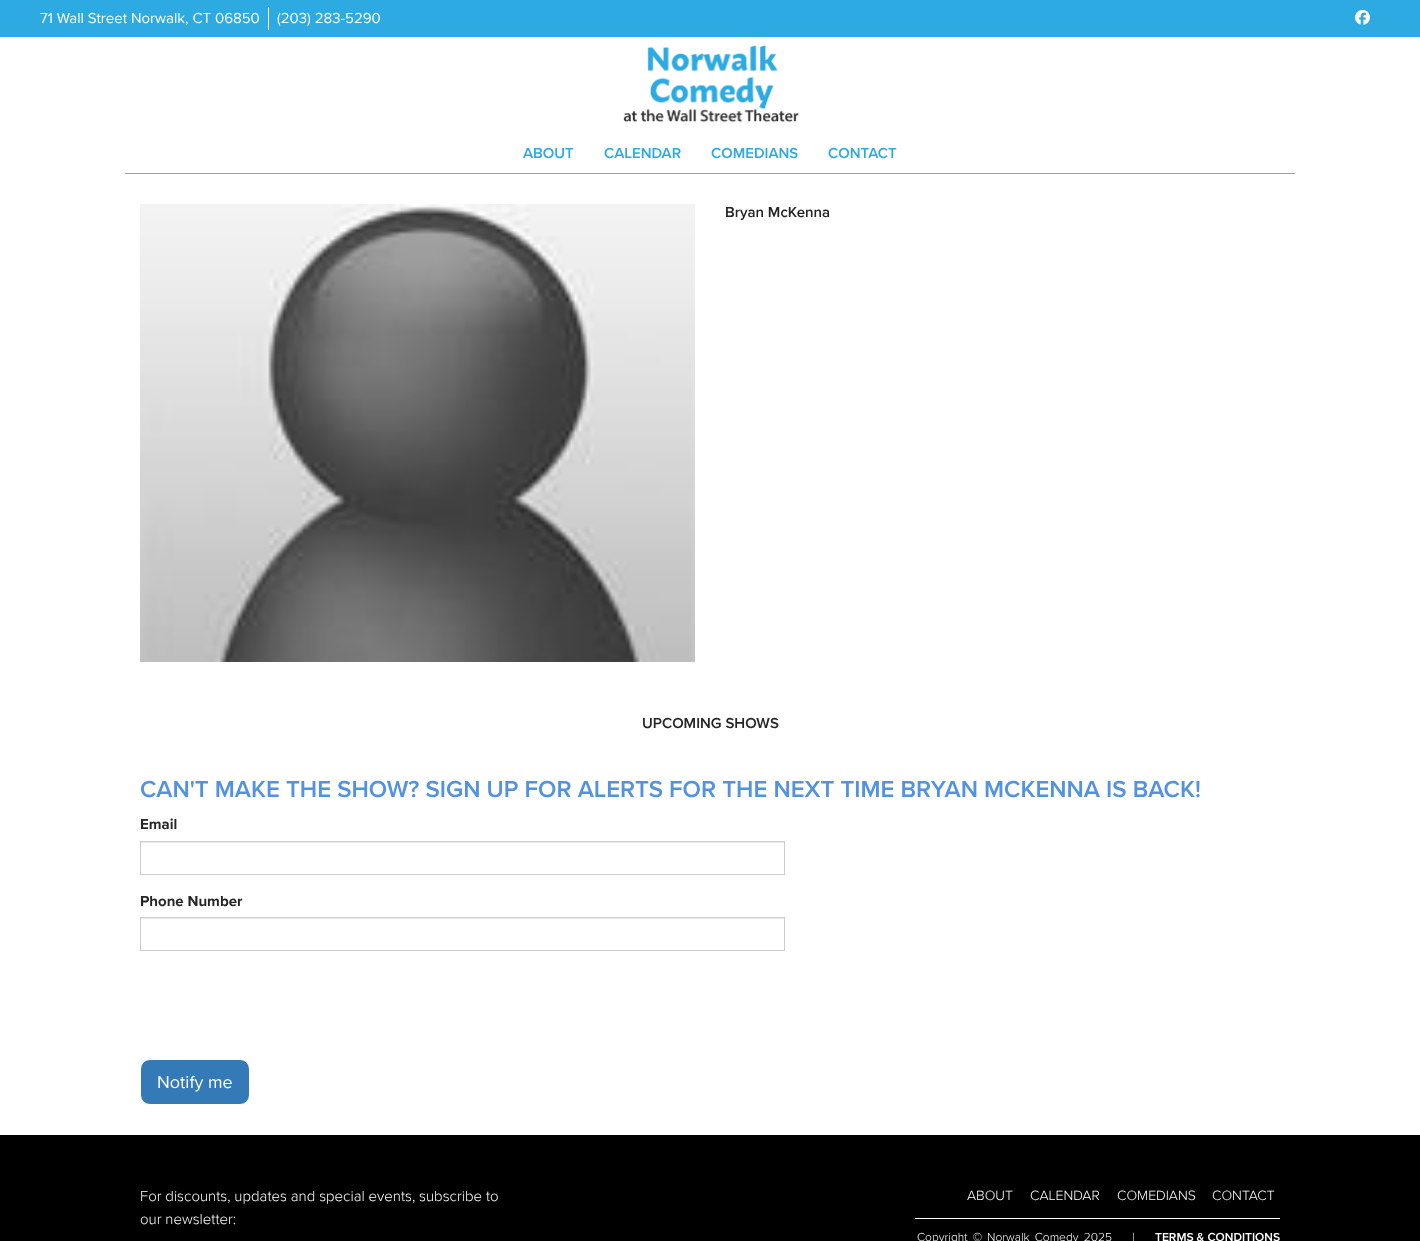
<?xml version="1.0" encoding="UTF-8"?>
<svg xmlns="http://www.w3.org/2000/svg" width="1420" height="1241">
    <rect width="100%" height="100%" fill="#FFFFFF"/>
    <rect x="0" y="0" width="1420" height="37" fill="#2CAAE1"/>
    <rect x="268" y="7" width="1" height="23" fill="#FFFFFF"/>
    <text x="40" y="23" font-family="Proxima Nova" font-size="15" fill="#FFFFFF">71 Wall Street Norwalk, CT 06850</text>
    <text x="277" y="23" font-family="Proxima Nova" font-size="15" fill="#FFFFFF">(203) 283-5290</text>
    <image x="1355" y="9" width="15" height="16" href="img_01.png"/>
    <image x="623" y="45" width="176" height="78" href="img_02.png"/>
    <text x="523" y="158" font-family="Proxima Nova" font-size="15" font-weight="600" fill="#2CAAE1">ABOUT</text>
    <text x="604" y="158" font-family="Proxima Nova" font-size="15" font-weight="600" fill="#2CAAE1">CALENDAR</text>
    <text x="711" y="158" font-family="Proxima Nova" font-size="15" font-weight="600" fill="#2CAAE1">COMEDIANS</text>
    <text x="828" y="158" font-family="Proxima Nova" font-size="15" font-weight="600" fill="#2CAAE1">CONTACT</text>
    <rect x="125" y="173" width="1170" height="1" fill="#A1A1A1"/>
    <image x="140" y="204" width="555" height="458" href="img_03.png"/>
    <text x="725" y="217" font-family="Proxima Nova" font-size="15" font-weight="600" fill="#252525">Bryan McKenna</text>
    <text x="642" y="728" font-family="Proxima Nova" font-size="15" font-weight="600" fill="#252525">UPCOMING SHOWS</text>
    <text x="140" y="797" font-family="Proxima Nova" font-size="24" font-weight="600" fill="#5292E1">CAN'T MAKE THE SHOW? SIGN UP FOR ALERTS FOR THE NEXT TIME BRYAN MCKENNA IS BACK!</text>
    <text x="140" y="829" font-family="Proxima Nova" font-size="15" font-weight="700" fill="#252525">Email</text>
    <rect x="141" y="842" width="643" height="1" fill="#ECECEC"/>
    <rect x="140.5" y="841.5" width="644" height="33" fill="none" stroke="#CCCCCC"/>
    <text x="140" y="906" font-family="Proxima Nova" font-size="15" font-weight="700" fill="#252525">Phone Number</text>
    <rect x="141" y="918" width="643" height="1" fill="#ECECEC"/>
    <rect x="140.5" y="917.5" width="644" height="33" fill="none" stroke="#CCCCCC"/>
    <rect x="140.5" y="1059.5" width="109" height="45" rx="9.5" fill="#337AB7" stroke="#FFFFFF"/>
    <text x="157" y="1088" font-family="Proxima Nova" font-size="18" fill="#FFFFFF">Notify me</text>
    <rect x="0" y="1135" width="1420" height="106" fill="#000000"/>
    <text font-family="Proxima Nova" font-size="15" font-weight="300" fill="#FFFFFF">
        <tspan x="140" y="1201">For discounts, updates and special events, subscribe to</tspan>
        <tspan x="140" y="1224">our newsletter:</tspan>
    </text>
    <rect x="915" y="1218" width="365" height="1" fill="#FFFFFF"/>
    <text x="967" y="1200" font-family="Proxima Nova" font-size="14" font-weight="300" fill="#FFFFFF">ABOUT</text>
    <text x="1030" y="1200" font-family="Proxima Nova" font-size="14" font-weight="300" fill="#FFFFFF">CALENDAR</text>
    <text x="1117" y="1200" font-family="Proxima Nova" font-size="14" font-weight="300" fill="#FFFFFF">COMEDIANS</text>
    <text x="1212" y="1200" font-family="Proxima Nova" font-size="14" font-weight="300" fill="#FFFFFF">CONTACT</text>
    <text x="917" y="1241" word-spacing="2" font-family="Proxima Nova" font-size="12" font-weight="300" fill="#FFFFFF">Copyright © Norwalk Comedy 2025</text>
    <text x="1132" y="1241" font-family="Proxima Nova" font-size="12" font-weight="300" fill="#FFFFFF">|</text>
    <text x="1155" y="1241" font-family="Proxima Nova" font-size="12" font-weight="600" fill="#FFFFFF">TERMS &amp; CONDITIONS</text>
</svg>
